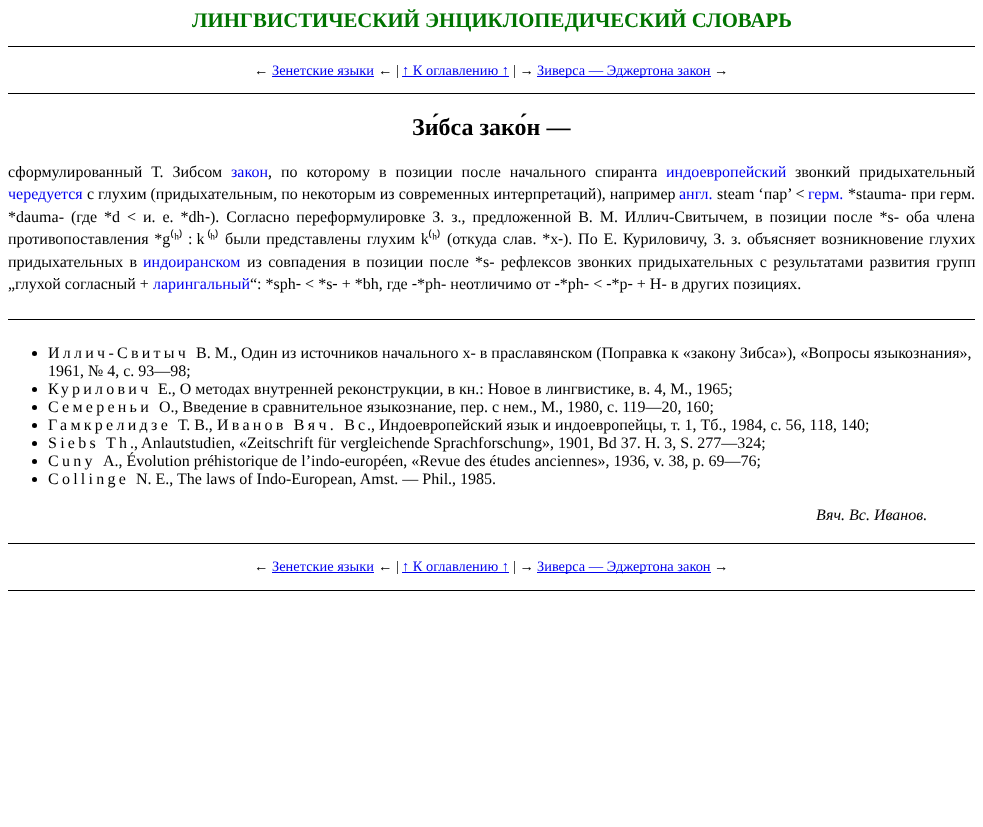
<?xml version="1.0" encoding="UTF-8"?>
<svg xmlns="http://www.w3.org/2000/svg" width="983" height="827">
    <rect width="100%" height="100%" fill="#FFFFFF"/>
    <text x="192" y="27" font-family="Liberation Serif" font-size="20.8" font-weight="700" fill="#007400">ЛИНГВИСТИЧЕСКИЙ ЭНЦИКЛОПЕДИЧЕСКИЙ СЛОВАРЬ</text>
    <rect x="8" y="46" width="967" height="1" fill="#000000"/>
    <rect x="8" y="93" width="967" height="1" fill="#000000"/>
    <text x="254" y="75" font-family="Liberation Serif" font-size="14.4" fill="#000000">←</text>
    <text x="272" y="75" font-family="Liberation Serif" font-size="14.4" fill="#0000EE">Зенетские языки</text>
    <rect x="272" y="76" width="102" height="1" fill="#0000EE"/>
    <text x="378" y="75" font-family="Liberation Serif" font-size="14.4" fill="#000000">← |</text>
    <text x="402" y="75" font-family="Liberation Serif" font-size="14.4" fill="#0000EE">↑ К оглавлению ↑</text>
    <rect x="402" y="76" width="107" height="1" fill="#0000EE"/>
    <text x="513" y="75" font-family="Liberation Serif" font-size="14.4" fill="#000000">| →</text>
    <rect x="537" y="76" width="174" height="1" fill="#0000EE"/>
    <text x="537" y="75" font-family="Liberation Serif" font-size="14.4" fill="#0000EE">Зиверса — Эджертона закон</text>
    <text x="714" y="75" font-family="Liberation Serif" font-size="14.4" fill="#000000">→</text>
    <text x="412" y="135" font-family="Liberation Serif" font-size="24" font-weight="700" fill="#000000">Зи́бса зако́н —</text>
    <text x="8" y="177" word-spacing="5" font-family="Liberation Serif" font-size="16" fill="#000000">сформулированный Т. Зибсом</text>
    <text x="231" y="177" font-family="Liberation Serif" font-size="16" fill="#0000EE">закон</text>
    <text x="268" y="177" word-spacing="5" font-family="Liberation Serif" font-size="16" fill="#000000">, по которому в позиции после начального спиранта</text>
    <text x="666" y="177" font-family="Liberation Serif" font-size="16" fill="#0000EE">индоевропейский</text>
    <text x="795" y="177" word-spacing="5" font-family="Liberation Serif" font-size="16" fill="#000000">звонкий придыхательный</text>
    <text x="8" y="199" font-family="Liberation Serif" font-size="16" fill="#0000EE">чередуется</text>
    <text x="87" y="199" font-family="Liberation Serif" font-size="16" fill="#000000">с глухим (придыхательным, по некоторым из современных интерпретаций), например</text>
    <text x="679" y="199" font-family="Liberation Serif" font-size="16" fill="#0000EE">англ.</text>
    <text x="717" y="199" font-family="Liberation Serif" font-size="16" fill="#000000">steam ‘пар’ &lt;</text>
    <text x="808" y="199" font-family="Liberation Serif" font-size="16" fill="#0000EE">герм.</text>
    <text x="848" y="199" font-family="Liberation Serif" font-size="16" fill="#000000">*stauma- при герм.</text>
    <text x="8" y="222" word-spacing="2.9" font-family="Liberation Serif" font-size="16" fill="#000000">*dauma- (где *d &lt; и. е. *dh</text>
    <text x="205" y="222" font-family="Noto Sans" font-size="16" fill="#000000">‑</text>
    <text x="210" y="222" word-spacing="2.9" font-family="Liberation Serif" font-size="16" fill="#000000">). Согласно переформулировке З. з., предложенной В. М. Иллич-Свитычем, в позиции после *s- оба члена</text>
    <text x="8" y="244" word-spacing="1.75" font-family="Liberation Serif" font-size="16" fill="#000000">противопоставления *g</text>
    <text x="170" y="244" font-family="Noto Sans" font-size="16" fill="#000000">⁽</text>
    <text x="174" y="244" font-family="Liberation Serif" font-size="16" fill="#000000">ʰ</text>
    <text x="179" y="244" font-family="Noto Sans" font-size="16" fill="#000000">⁾</text>
    <text x="188" y="244" font-family="Liberation Serif" font-size="16" fill="#000000">: k</text>
    <text x="207" y="244" font-family="Noto Sans" font-size="16" fill="#000000">⁽</text>
    <text x="210" y="244" font-family="Liberation Serif" font-size="16" fill="#000000">ʰ</text>
    <text x="215" y="244" font-family="Noto Sans" font-size="16" fill="#000000">⁾</text>
    <text x="225" y="244" word-spacing="1.75" font-family="Liberation Serif" font-size="16" fill="#000000">были представлены глухим k</text>
    <text x="428" y="244" font-family="Noto Sans" font-size="16" fill="#000000">⁽</text>
    <text x="432" y="244" font-family="Liberation Serif" font-size="16" fill="#000000">ʰ</text>
    <text x="437" y="244" font-family="Noto Sans" font-size="16" fill="#000000">⁾</text>
    <text x="447" y="244" word-spacing="1.75" font-family="Liberation Serif" font-size="16" fill="#000000">(откуда слав. *x</text>
    <text x="558" y="244" font-family="Noto Sans" font-size="16" fill="#000000">‑</text>
    <text x="563" y="244" word-spacing="1.75" font-family="Liberation Serif" font-size="16" fill="#000000">). По Е. Куриловичу, З. з. объясняет возникновение глухих</text>
    <text x="8" y="267" word-spacing="2.25" font-family="Liberation Serif" font-size="16" fill="#000000">придыхательных в</text>
    <text x="143" y="267" font-family="Liberation Serif" font-size="16" fill="#0000EE">индоиранском</text>
    <text x="247" y="267" word-spacing="2.25" font-family="Liberation Serif" font-size="16" fill="#000000">из совпадения в позиции после *s- рефлексов звонких придыхательных с результатами развития групп</text>
    <text x="8" y="289" font-family="Liberation Serif" font-size="16" fill="#000000">„глухой согласный +</text>
    <text x="153" y="289" font-family="Liberation Serif" font-size="16" fill="#0000EE">ларингальный</text>
    <text x="250" y="289" font-family="Liberation Serif" font-size="16" fill="#000000">“: *sph‑ &lt; *s‑ + *bh, где ‑*ph- неотличимо от ‑*ph‑ &lt; ‑*p‑ + H- в других позициях.</text>
    <rect x="8" y="319" width="967" height="1" fill="#000000"/>
    <circle cx="34.5" cy="353.5" r="2.5" fill="#000000"/>
    <text x="48" y="358" font-family="Liberation Serif" font-size="16" letter-spacing="3.25" fill="#000000">Иллич-Свитыч</text>
    <text x="196" y="358" font-family="Liberation Serif" font-size="16" fill="#000000">В. М., Один из источников начального x- в праславянском (Поправка к «закону Зибса»), «Вопросы языкознания»,</text>
    <text x="48" y="376" font-family="Liberation Serif" font-size="16" fill="#000000">1961, № 4, с. 93—98;</text>
    <circle cx="34.5" cy="389.5" r="2.5" fill="#000000"/>
    <text x="48" y="394" font-family="Liberation Serif" font-size="16" letter-spacing="3.25" fill="#000000">Курилович</text>
    <text x="158" y="394" font-family="Liberation Serif" font-size="16" fill="#000000">Е., О методах внутренней реконструкции, в кн.: Новое в лингвистике, в. 4, М., 1965;</text>
    <circle cx="34.5" cy="407.5" r="2.5" fill="#000000"/>
    <text x="48" y="412" font-family="Liberation Serif" font-size="16" letter-spacing="3.25" fill="#000000">Семереньи</text>
    <text x="159" y="412" font-family="Liberation Serif" font-size="16" fill="#000000">О., Введение в сравнительное языкознание, пер. с нем., М., 1980, с. 119—20, 160;</text>
    <circle cx="34.5" cy="425.5" r="2.5" fill="#000000"/>
    <text x="48" y="430" font-family="Liberation Serif" font-size="16" letter-spacing="3.25" fill="#000000">Гамкрелидзе</text>
    <text x="178" y="430" font-family="Liberation Serif" font-size="16" fill="#000000">Т. В.,</text>
    <text x="217" y="430" font-family="Liberation Serif" font-size="16" letter-spacing="3.25" fill="#000000">Иванов Вяч. Вс</text>
    <text x="367" y="430" font-family="Liberation Serif" font-size="16" fill="#000000">., Индоевропейский язык и индоевропейцы, т. 1, Тб., 1984, с. 56, 118, 140;</text>
    <circle cx="34.5" cy="443.5" r="2.5" fill="#000000"/>
    <text x="48" y="448" font-family="Liberation Serif" font-size="16" letter-spacing="3.25" fill="#000000">Siebs Th</text>
    <text x="130" y="448" font-family="Liberation Serif" font-size="16" fill="#000000">., Anlautstudien, «Zeitschrift für vergleichende Sprachforschung», 1901, Bd 37. H. 3, S. 277—324;</text>
    <circle cx="34.5" cy="461.5" r="2.5" fill="#000000"/>
    <text x="48" y="466" font-family="Liberation Serif" font-size="16" letter-spacing="3.25" fill="#000000">Cuny</text>
    <text x="103" y="466" font-family="Liberation Serif" font-size="16" fill="#000000">A., Évolution préhistorique de l’indo-européen, «Revue des études anciennes», 1936, v. 38, p. 69—76;</text>
    <circle cx="34.5" cy="479.5" r="2.5" fill="#000000"/>
    <text x="48" y="484" font-family="Liberation Serif" font-size="16" letter-spacing="3.25" fill="#000000">Collinge</text>
    <text x="136" y="484" font-family="Liberation Serif" font-size="16" fill="#000000">N. E., The laws of Indo-European, Amst. — Phil., 1985.</text>
    <text x="816" y="520" font-family="Liberation Serif" font-size="16" font-style="italic" fill="#000000">Вяч. Вс. Иванов.</text>
    <rect x="8" y="543" width="967" height="1" fill="#000000"/>
    <rect x="8" y="590" width="967" height="1" fill="#000000"/>
    <text x="254" y="571" font-family="Liberation Serif" font-size="14.4" fill="#000000">←</text>
    <text x="272" y="571" font-family="Liberation Serif" font-size="14.4" fill="#0000EE">Зенетские языки</text>
    <rect x="272" y="572" width="102" height="1" fill="#0000EE"/>
    <text x="378" y="571" font-family="Liberation Serif" font-size="14.4" fill="#000000">← |</text>
    <text x="402" y="571" font-family="Liberation Serif" font-size="14.4" fill="#0000EE">↑ К оглавлению ↑</text>
    <rect x="402" y="572" width="107" height="1" fill="#0000EE"/>
    <text x="513" y="571" font-family="Liberation Serif" font-size="14.4" fill="#000000">| →</text>
    <rect x="537" y="572" width="174" height="1" fill="#0000EE"/>
    <text x="537" y="571" font-family="Liberation Serif" font-size="14.4" fill="#0000EE">Зиверса — Эджертона закон</text>
    <text x="714" y="571" font-family="Liberation Serif" font-size="14.4" fill="#000000">→</text>
</svg>
